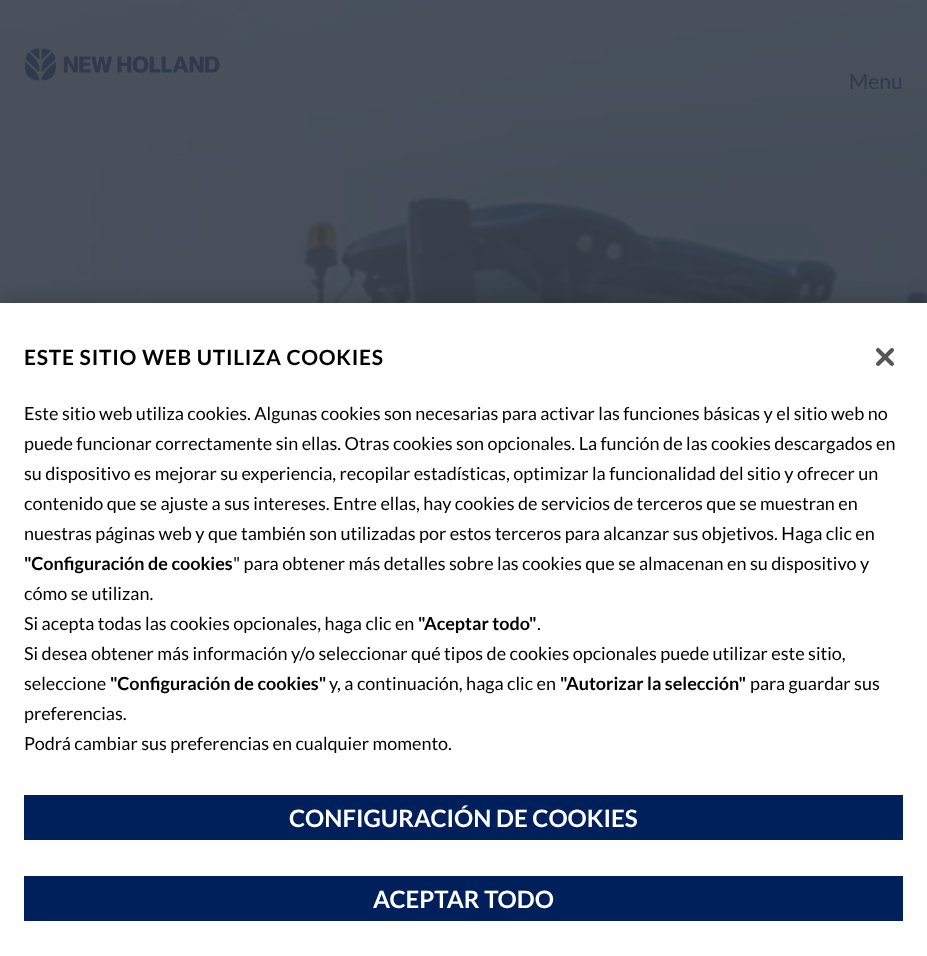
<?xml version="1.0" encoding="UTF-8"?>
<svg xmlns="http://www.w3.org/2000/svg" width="927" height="956">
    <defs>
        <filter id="blur1" x="-50%" y="-200%" width="200%" height="500%"><feGaussianBlur stdDeviation="13.5"/></filter>
    </defs>
    <rect width="100%" height="100%" fill="#FFFFFF"/>
    <image x="0" y="0" width="927" height="303" href="img_01.png"/>
    <image x="25" y="48" width="195" height="33" href="img_02.png"/>
    <text x="849" y="89" font-family="Lato" font-size="21" fill="#2F3B4C">Menu</text>
    <rect x="0" y="303" width="927" height="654" fill="#000000" fill-opacity="0.2" filter="url(#blur1)"/>
    <rect x="0" y="303" width="927" height="653" fill="#FFFFFF"/>
    <image x="876" y="348" width="18" height="18" href="img_03.png"/>
    <text x="24" y="365" font-family="Lato" font-size="21" font-weight="700" letter-spacing="0.75" fill="#000000">ESTE SITIO WEB UTILIZA COOKIES</text>
    <text font-family="Lato" font-size="18" fill="#000000">
        <tspan x="24" y="420">Este sitio web utiliza cookies. Algunas cookies son necesarias para activar las funciones básicas y el sitio web no</tspan>
        <tspan x="24" y="450">puede funcionar correctamente sin ellas. Otras cookies son opcionales. La función de las cookies descargados en</tspan>
        <tspan x="24" y="480">su dispositivo es mejorar su experiencia, recopilar estadísticas, optimizar la funcionalidad del sitio y ofrecer un</tspan>
        <tspan x="24" y="510">contenido que se ajuste a sus intereses. Entre ellas, hay cookies de servicios de terceros que se muestran en</tspan>
        <tspan x="24" y="540">nuestras páginas web y que también son utilizadas por estos terceros para alcanzar sus objetivos. Haga clic en</tspan>
    </text>
    <text x="24" y="570" font-family="Lato" font-size="18" font-weight="700" fill="#000000">"Configuración de cookies</text>
    <text x="233" y="570" font-family="Lato" font-size="18" fill="#000000">" para obtener más detalles sobre las cookies que se almacenan en su dispositivo y</text>
    <text font-family="Lato" font-size="18" fill="#000000">
        <tspan x="24" y="600">cómo se utilizan.</tspan>
        <tspan x="24" y="630">Si acepta todas las cookies opcionales, haga clic en</tspan>
    </text>
    <text x="418" y="630" font-family="Lato" font-size="18" font-weight="700" fill="#000000">"Aceptar todo"</text>
    <text x="537" y="630" font-family="Lato" font-size="18" fill="#000000">.</text>
    <text font-family="Lato" font-size="18" fill="#000000">
        <tspan x="24" y="660">Si desea obtener más información y/o seleccionar qué tipos de cookies opcionales puede utilizar este sitio,</tspan>
        <tspan x="24" y="690">seleccione</tspan>
    </text>
    <text x="110" y="690" font-family="Lato" font-size="18" font-weight="700" fill="#000000">"Configuración de cookies"</text>
    <text x="329" y="690" font-family="Lato" font-size="18" fill="#000000">y, a continuación, haga clic en</text>
    <text x="560" y="690" font-family="Lato" font-size="18" font-weight="700" fill="#000000">"Autorizar la selección"</text>
    <text x="750" y="690" font-family="Lato" font-size="18" fill="#000000">para guardar sus</text>
    <text font-family="Lato" font-size="18" fill="#000000">
        <tspan x="24" y="720">preferencias.</tspan>
        <tspan x="24" y="750">Podrá cambiar sus preferencias en cualquier momento.</tspan>
    </text>
    <rect x="24" y="795" width="879" height="45" fill="#00205B"/>
    <text x="289" y="827" font-family="Lato" font-size="24" font-weight="700" fill="#FFFFFF">CONFIGURACIÓN DE COOKIES</text>
    <rect x="24" y="876" width="879" height="45" fill="#00205B"/>
    <text x="373" y="908" font-family="Lato" font-size="24" font-weight="700" fill="#FFFFFF">ACEPTAR TODO</text>
</svg>
